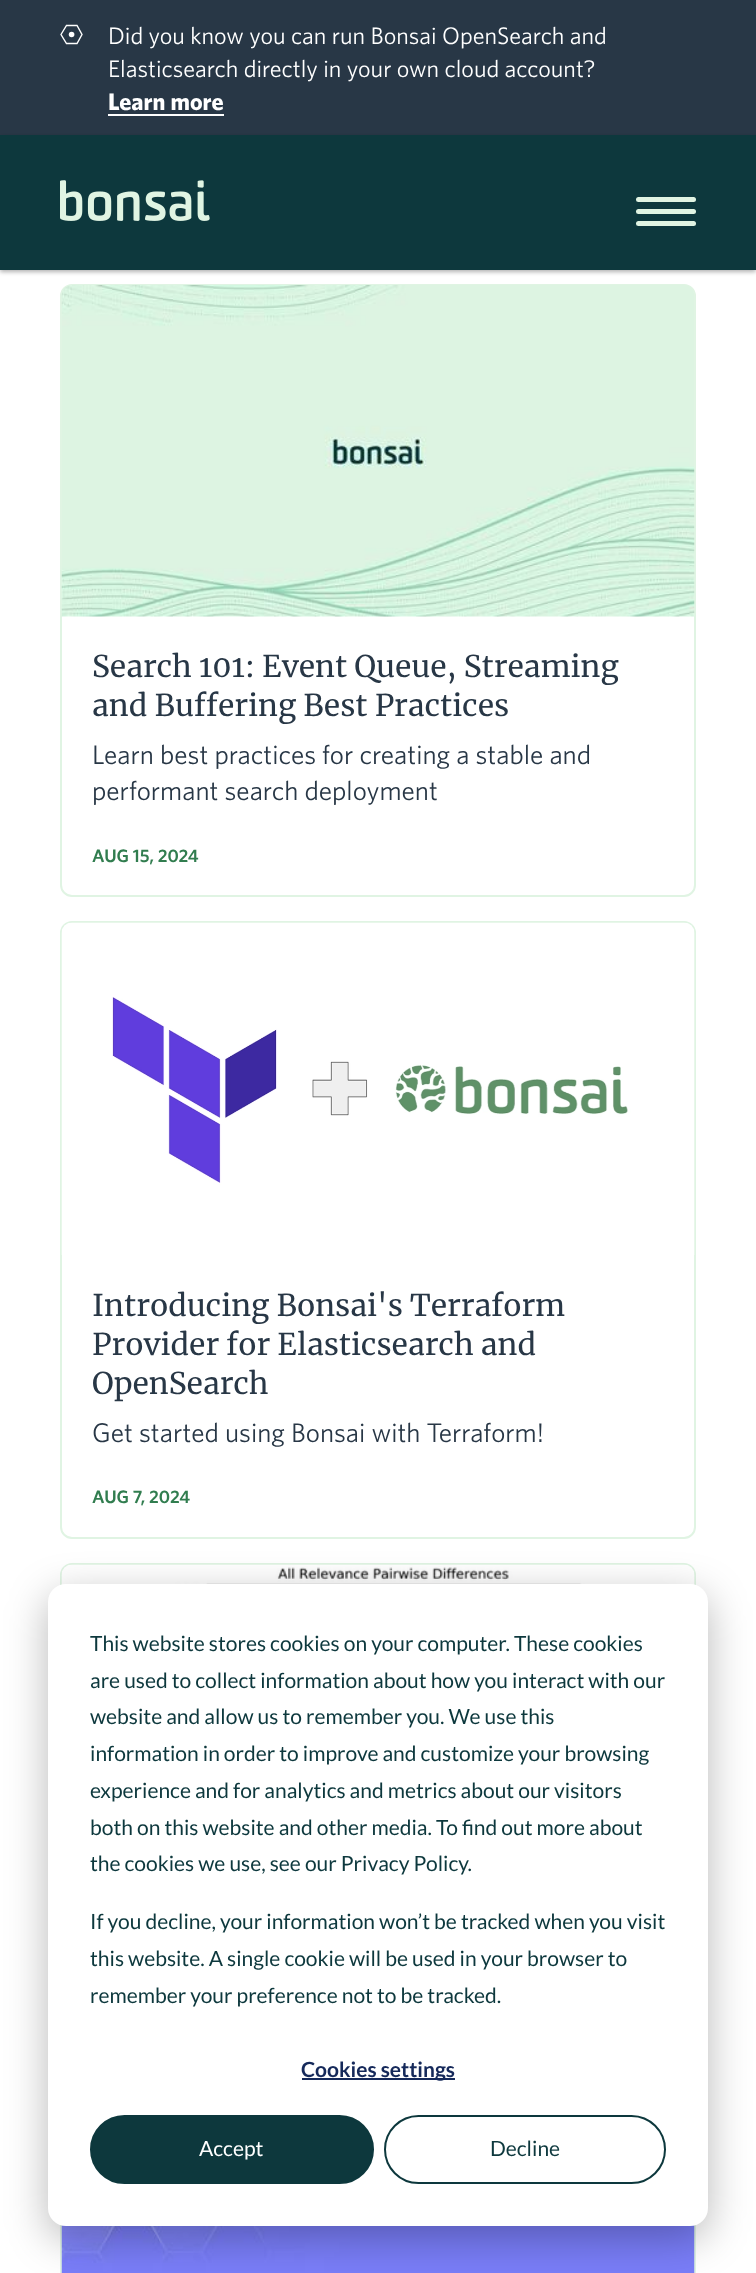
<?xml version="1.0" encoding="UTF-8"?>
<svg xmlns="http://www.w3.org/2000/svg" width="756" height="2273">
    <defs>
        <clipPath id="clip1"><path d="M 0 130 H 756 V 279 H 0 Z M 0 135 H 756 V 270 H 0 Z" clip-rule="evenodd"/></clipPath>
        <filter id="blur1" x="-50%" y="-200%" width="200%" height="500%"><feGaussianBlur stdDeviation="2"/></filter>
        <filter id="blur2" x="-50%" y="-200%" width="200%" height="500%"><feGaussianBlur stdDeviation="21"/></filter>
    </defs>
    <rect width="100%" height="100%" fill="#FFFFFF"/>
    <rect x="0" y="0" width="756" height="135" fill="#283746"/>
    <path d="M 61 34.5 L 66.5 25.5 H 77 L 82 34.5 L 77 43.5 H 66.5 Z" fill="none" stroke="#FFFFFF" stroke-width="1.4"/>
    <circle cx="71.6" cy="34.5" r="2.8" fill="#FFFFFF"/>
    <text font-family="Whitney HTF" font-size="24" fill="#FFFFFF">
        <tspan x="108" y="44">Did you know you can run Bonsai OpenSearch and</tspan>
        <tspan x="108" y="77">Elasticsearch directly in your own cloud account?</tspan>
    </text>
    <text x="108" y="110" font-family="Whitney HTF" font-size="24" font-weight="700" fill="#FFFFFF">Learn more</text>
    <rect x="108" y="114" width="116" height="2" fill="#FFFFFF"/>
    <rect x="0" y="135" width="756" height="135" fill="#0D383D"/>
    <g clip-path="url(#clip1)">
        <rect x="0" y="137" width="756" height="135" fill="#000000" fill-opacity="0.3" filter="url(#blur1)"/>
    </g>
    <image x="60" y="180" width="150" height="41" href="img_01.png"/>
    <rect x="636" y="197" width="60" height="5" rx="2.5" fill="#E0F4E3"/>
    <rect x="636" y="209" width="60" height="5" rx="2.5" fill="#E0F4E3"/>
    <rect x="636" y="221" width="60" height="5" rx="2.5" fill="#E0F4E3"/>
    <rect x="61" y="285" width="634" height="611" rx="11" fill="none" stroke="#E0F4E3" stroke-width="2"/>
    <image x="61" y="285" width="634" height="332" href="img_02.png"/>
    <text font-family="Merriweather" font-size="30" fill="#283746">
        <tspan x="92" y="677">Search 101: Event Queue, Streaming</tspan>
        <tspan x="92" y="716">and Buffering Best Practices</tspan>
    </text>
    <text font-family="Whitney HTF" font-size="27" fill="#283746">
        <tspan x="92" y="764">Learn best practices for creating a stable and</tspan>
        <tspan x="92" y="800">performant search deployment</tspan>
    </text>
    <text x="92" y="862" font-family="Whitney HTF" font-size="18" font-weight="600" fill="#317D4F">AUG 15, 2024</text>
    <rect x="61" y="922" width="634" height="616" rx="11" fill="none" stroke="#E0F4E3" stroke-width="2"/>
    <image x="61" y="922" width="634" height="333" href="img_03.png"/>
    <text font-family="Merriweather" font-size="30" fill="#283746">
        <tspan x="92" y="1316">Introducing Bonsai's Terraform</tspan>
        <tspan x="92" y="1355">Provider for Elasticsearch and</tspan>
        <tspan x="92" y="1394">OpenSearch</tspan>
    </text>
    <text x="92" y="1442" font-family="Whitney HTF" font-size="27" fill="#283746">Get started using Bonsai with Terraform!</text>
    <text x="92" y="1503" font-family="Whitney HTF" font-size="18" font-weight="600" fill="#317D4F">AUG 7, 2024</text>
    <rect x="61" y="1564" width="634" height="613" rx="11" fill="none" stroke="#E0F4E3" stroke-width="2"/>
    <image x="61" y="1564" width="634" height="21" href="img_04.png"/>
    <rect x="61" y="2203" width="634" height="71" fill="none" stroke="#E0F4E3" stroke-width="2"/>
    <image x="61" y="2225" width="634" height="48" href="img_05.png"/>
    <rect x="48" y="1596" width="660" height="642" rx="18" fill="#000000" fill-opacity="0.28" filter="url(#blur2)"/>
    <rect x="48" y="1584" width="660" height="642" rx="18" fill="#FFFFFF"/>
    <text font-family="Lato" font-size="21" fill="#0D383D">
        <tspan x="90" y="1651">This website stores cookies on your computer. These cookies</tspan>
        <tspan x="90" y="1688">are used to collect information about how you interact with our</tspan>
        <tspan x="90" y="1724">website and allow us to remember you. We use this</tspan>
        <tspan x="90" y="1761">information in order to improve and customize your browsing</tspan>
        <tspan x="90" y="1798">experience and for analytics and metrics about our visitors</tspan>
        <tspan x="90" y="1835">both on this website and other media. To find out more about</tspan>
        <tspan x="90" y="1871">the cookies we use, see our Privacy Policy.</tspan>
    </text>
    <text font-family="Lato" font-size="21" fill="#0D383D">
        <tspan x="90" y="1929">If you decline, your information won’t be tracked when you visit</tspan>
        <tspan x="90" y="1966">this website. A single cookie will be used in your browser to</tspan>
        <tspan x="90" y="2003">remember your preference not to be tracked.</tspan>
    </text>
    <rect x="302" y="2078" width="153" height="2" fill="#15295A"/>
    <text x="301" y="2077" font-family="Lato" font-size="21" font-weight="700" fill="#15295A">Cookies settings</text>
    <rect x="91" y="2116" width="282" height="67" rx="33.5" fill="#0D383D" stroke="#0D383D" stroke-width="2"/>
    <text x="199" y="2156" font-family="Lato" font-size="21" fill="#FFFFFF">Accept</text>
    <rect x="385" y="2116" width="280" height="67" rx="33.5" fill="none" stroke="#0D383D" stroke-width="2"/>
    <text x="490" y="2156" font-family="Lato" font-size="21" fill="#0D383D">Decline</text>
</svg>
